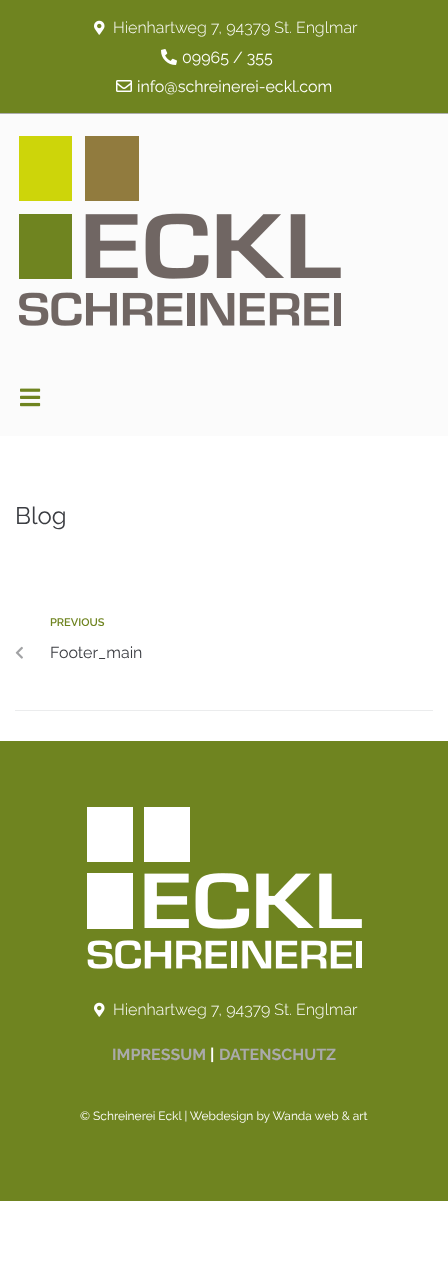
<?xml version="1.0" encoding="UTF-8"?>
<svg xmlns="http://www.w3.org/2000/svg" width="448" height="1266">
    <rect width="100%" height="100%" fill="#FFFFFF"/>
    <rect x="0" y="0" width="448" height="113" fill="#6F8420"/>
    <rect x="0" y="113" width="448" height="1" fill="#AEAEAE"/>
    <image x="94" y="20" width="11" height="15" href="img_01.png"/>
    <text x="113" y="33" font-family="Raleway" font-size="16" font-weight="300" fill="#FFFFFF">Hienhartweg 7, 94379 St. Englmar</text>
    <image x="161" y="49" width="16" height="16" href="img_02.png"/>
    <text x="182" y="63" font-family="Raleway" font-size="16" fill="#FFFFFF">09965 / 355</text>
    <image x="116" y="80" width="16" height="12" href="img_03.png"/>
    <text x="137" y="92" font-family="Raleway" font-size="16" fill="#FFFFFF">info@schreinerei-eckl.com</text>
    <rect x="0" y="114" width="448" height="322" fill="#FBFBFB"/>
    <image x="18" y="136" width="323" height="190" href="img_04.png"/>
    <image x="20" y="388" width="21" height="19" href="img_05.png"/>
    <text x="15" y="524" font-family="Raleway" font-size="24" fill="#3B3D42">Blog</text>
    <rect x="15" y="710" width="418" height="1" fill="#EBECED"/>
    <text x="50" y="626" font-family="Raleway" font-size="11" font-weight="600" fill="#6F8420">PREVIOUS</text>
    <image x="15" y="646" width="8" height="13" href="img_06.png"/>
    <text x="50" y="658" font-family="Raleway" font-size="16" fill="#3B3D42">Footer_main</text>
    <rect x="0" y="741" width="448" height="460" fill="#6F8420"/>
    <image x="87" y="807" width="275" height="162" href="img_07.png"/>
    <image x="94" y="1002" width="11" height="15" href="img_01.png"/>
    <text x="113" y="1015" font-family="Raleway" font-size="16" font-weight="300" fill="#FFFFFF">Hienhartweg 7, 94379 St. Englmar</text>
    <text x="112" y="1060" font-family="Raleway" font-size="16" font-weight="700" fill="#AAAAAA">IMPRESSUM</text>
    <text x="210" y="1060" font-family="Raleway" font-size="16" font-weight="700" fill="#FFFFFF">|</text>
    <text x="219" y="1060" font-family="Raleway" font-size="16" font-weight="700" fill="#AAAAAA">DATENSCHUTZ</text>
    <text x="80" y="1120" font-family="Raleway" font-size="12" fill="#FFFFFF">© Schreinerei Eckl | Webdesign by Wanda web &amp; art</text>
</svg>
